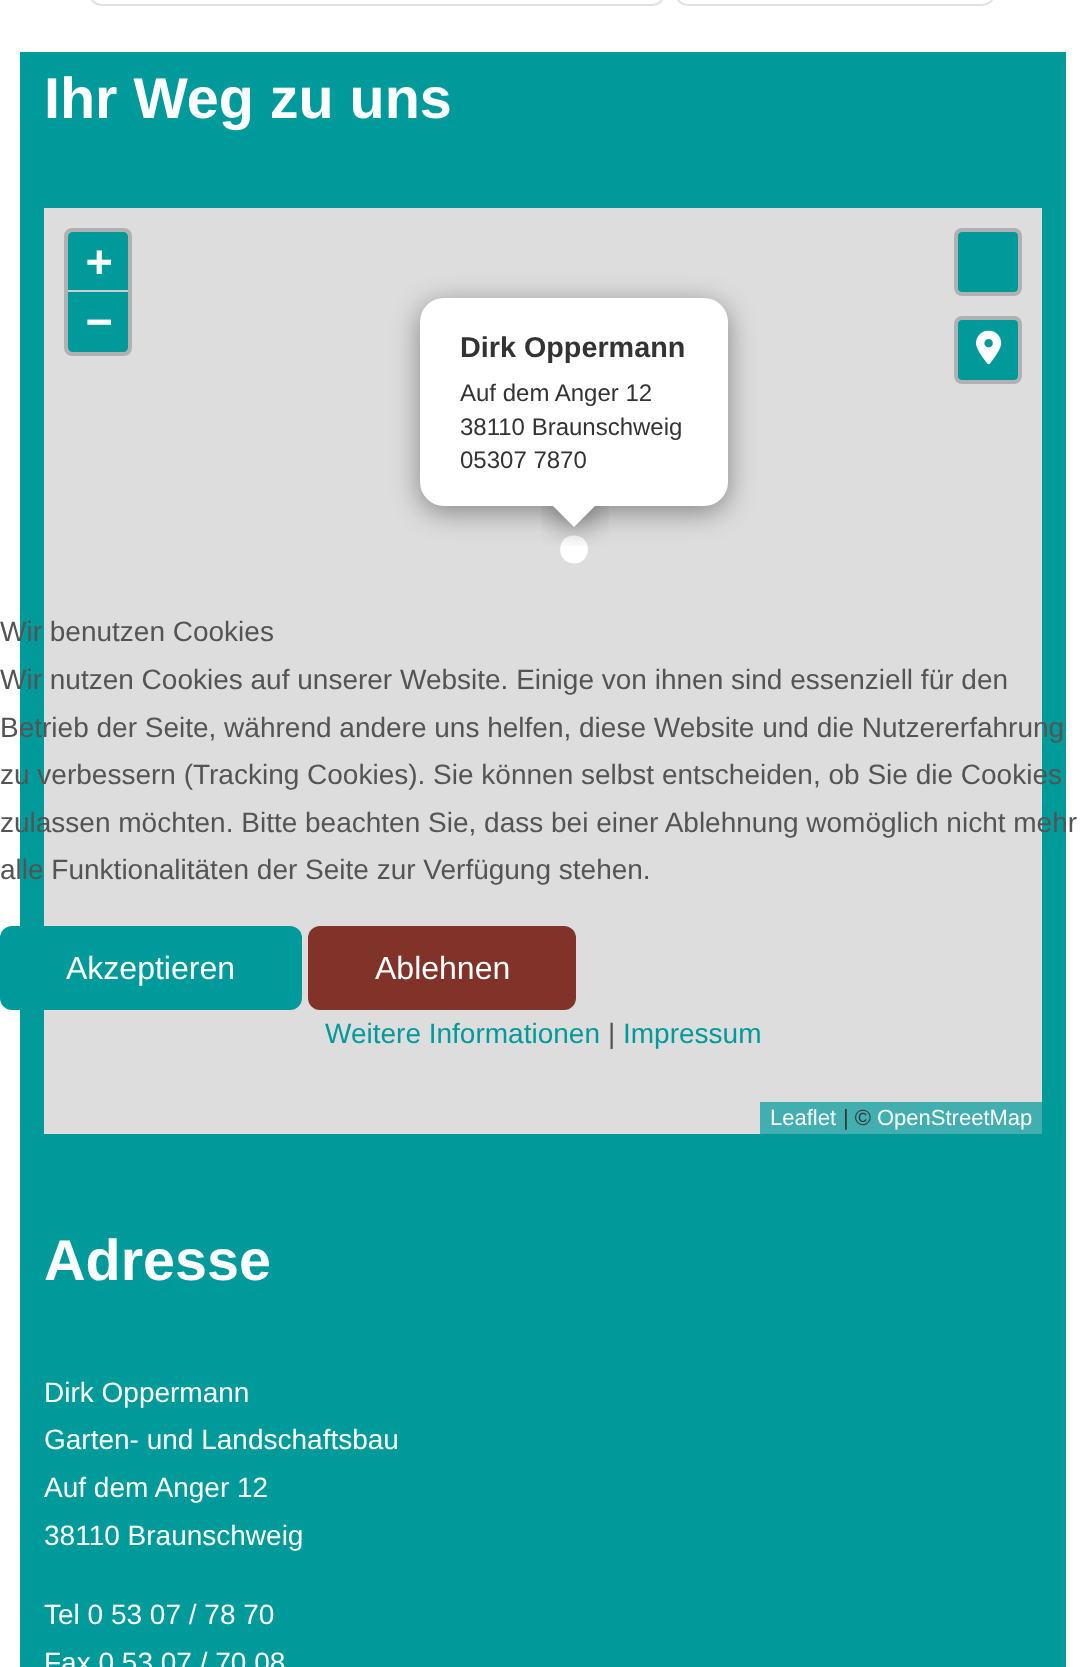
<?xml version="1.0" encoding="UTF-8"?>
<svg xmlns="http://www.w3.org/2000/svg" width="1086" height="1667">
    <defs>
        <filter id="blur1" x="-50%" y="-200%" width="200%" height="500%"><feGaussianBlur stdDeviation="14"/></filter>
        <clipPath id="clip1"><rect x="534" y="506" width="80" height="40"/></clipPath>
        <clipPath id="clip2"><rect x="534" y="506" width="80" height="40"/></clipPath>
    </defs>
    <rect width="100%" height="100%" fill="#FFFFFF"/>
    <rect x="91" y="-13" width="572" height="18" rx="11" fill="none" stroke="#DEE2E6" stroke-width="2"/>
    <rect x="677" y="-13" width="316" height="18" rx="11" fill="none" stroke="#DEE2E6" stroke-width="2"/>
    <rect x="20" y="52" width="1046" height="1615" fill="#009A9B"/>
    <text x="44" y="118" font-family="Liberation Sans" font-size="57.5" font-weight="700" fill="#FFFFFF">Ihr Weg zu uns</text>
    <rect x="44" y="208" width="998" height="926" fill="#DDDDDD"/>
    <rect x="66" y="230" width="64" height="124" rx="6" fill="none" stroke="#B1B1B1" stroke-width="4"/>
    <path d="M 72 232 H 124 C 126 232 128 234 128 236 V 292 H 68 V 236 C 68 234 70 232 72 232 Z" fill="#009A9B"/>
    <rect x="68" y="290" width="60" height="2" fill="#CCCCCC"/>
    <text x="86" y="276" font-family="DejaVu Sans Mono" font-size="44" font-weight="700" fill="#FFFFFF">+</text>
    <path d="M 68 292 H 128 V 348 C 128 350 126 352 124 352 H 72 C 70 352 68 350 68 348 Z" fill="#009A9B"/>
    <text x="86" y="336" font-family="DejaVu Sans Mono" font-size="44" font-weight="700" fill="#FFFFFF">−</text>
    <rect x="956" y="230" width="64" height="64" rx="6" fill="none" stroke="#B1B1B1" stroke-width="4"/>
    <rect x="958" y="232" width="60" height="60" rx="4" fill="#009A9B"/>
    <rect x="956" y="318" width="64" height="64" rx="6" fill="none" stroke="#B1B1B1" stroke-width="4"/>
    <rect x="958" y="320" width="60" height="60" rx="4" fill="#009A9B"/>
    <image x="976" y="330" width="26" height="35" href="img_01.png"/>
    <rect x="760" y="1102" width="282" height="32" fill="#42AEAF"/>
    <text x="770" y="1125" font-family="Liberation Sans" font-size="22" fill="#FFFFFF">Leaflet</text>
    <text x="843" y="1125" font-family="Liberation Sans" font-size="22" fill="#333333">| ©</text>
    <text x="877" y="1125" font-family="Liberation Sans" font-size="22" fill="#FFFFFF">OpenStreetMap</text>
    <path d="M 574 563.5 C 592.5 563 592.5 535.5 574 535.5 C 555.5 535.5 555.5 563 574 563.5 Z" fill="#FFFFFF"/>
    <rect x="420" y="304" width="308" height="208" rx="24" fill="#000000" fill-opacity="0.4" filter="url(#blur1)"/>
    <rect x="420" y="298" width="308" height="208" rx="24" fill="#FFFFFF"/>
    <text x="460" y="357" font-family="Liberation Sans" font-size="28.75" font-weight="700" fill="#333333">Dirk Oppermann</text>
    <text font-family="Liberation Sans" font-size="24" fill="#333333">
        <tspan x="460" y="401">Auf dem Anger 12</tspan>
        <tspan x="460" y="435">38110 Braunschweig</tspan>
        <tspan x="460" y="468">05307 7870</tspan>
    </text>
    <g clip-path="url(#clip1)">
        <rect x="558" y="492" width="34" height="34" fill="#000000" fill-opacity="0.4" filter="url(#blur1)"/>
    </g>
    <g clip-path="url(#clip2)">
        <path d="M 574 479 L 598 503 L 574 527 L 550 503 Z" fill="#FFFFFF"/>
    </g>
    <text x="44" y="1280" font-family="Liberation Sans" font-size="57.5" font-weight="700" fill="#FFFFFF">Adresse</text>
    <text font-family="Liberation Sans" font-size="28" fill="#FFFFFF">
        <tspan x="44" y="1402">Dirk Oppermann</tspan>
        <tspan x="44" y="1449">Garten- und Landschaftsbau</tspan>
        <tspan x="44" y="1497">Auf dem Anger 12</tspan>
        <tspan x="44" y="1545">38110 Braunschweig</tspan>
    </text>
    <text font-family="Liberation Sans" font-size="28" fill="#FFFFFF">
        <tspan x="44" y="1624">Tel 0 53 07 / 78 70</tspan>
        <tspan x="44" y="1672">Fax 0 53 07 / 70 08</tspan>
    </text>
    <text font-family="Liberation Sans" font-size="28" fill="#545454">
        <tspan x="0" y="641">Wir benutzen Cookies</tspan>
        <tspan x="0" y="689">Wir nutzen Cookies auf unserer Website. Einige von ihnen sind essenziell für den</tspan>
        <tspan x="0" y="737">Betrieb der Seite, während andere uns helfen, diese Website und die Nutzererfahrung</tspan>
        <tspan x="0" y="784">zu verbessern (Tracking Cookies). Sie können selbst entscheiden, ob Sie die Cookies</tspan>
        <tspan x="0" y="832">zulassen möchten. Bitte beachten Sie, dass bei einer Ablehnung womöglich nicht mehr</tspan>
        <tspan x="0" y="879">alle Funktionalitäten der Seite zur Verfügung stehen.</tspan>
    </text>
    <rect x="0" y="926" width="302" height="84" rx="12" fill="#009A9B"/>
    <text x="66" y="979" font-family="Liberation Sans" font-size="32" fill="#FFFFFF">Akzeptieren</text>
    <rect x="308" y="926" width="268" height="84" rx="12" fill="#813329"/>
    <text x="375" y="979" font-family="Liberation Sans" font-size="32" fill="#FFFFFF">Ablehnen</text>
    <text x="325" y="1043" font-family="Liberation Sans" font-size="28" fill="#009A9B">Weitere Informationen</text>
    <text x="608" y="1043" font-family="Liberation Sans" font-size="28" fill="#545454">|</text>
    <text x="623" y="1043" font-family="Liberation Sans" font-size="28" fill="#009A9B">Impressum</text>
</svg>
